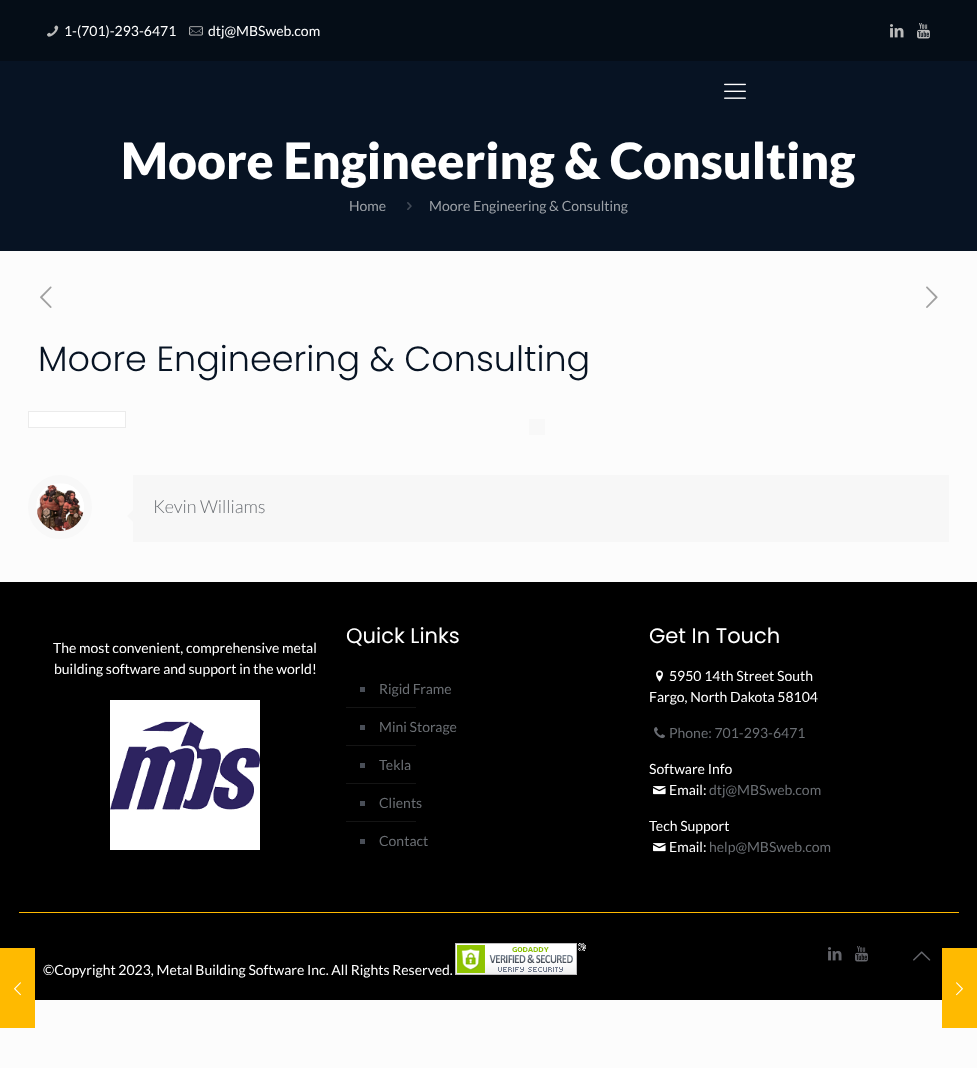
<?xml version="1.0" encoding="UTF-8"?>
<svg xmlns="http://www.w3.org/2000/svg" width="977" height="1068">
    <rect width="100%" height="100%" fill="#FCFCFC"/>
    <rect x="0" y="0" width="977" height="61" fill="#050D17"/>
    <image x="47" y="25" width="12" height="12" href="img_01.png"/>
    <text x="64" y="36" font-family="Lato" font-size="14" fill="#FFFFFF">1-(701)-293-6471</text>
    <image x="189" y="26" width="14" height="10" href="img_02.png"/>
    <text x="208" y="36" font-family="Lato" font-size="14" fill="#FFFFFF">dtj@MBSweb.com</text>
    <image x="890" y="24" width="14" height="14" href="img_03.png"/>
    <image x="917" y="23" width="13" height="16" href="img_04.png"/>
    <rect x="0" y="61" width="977" height="190" fill="#071323"/>
    <image x="724" y="83" width="22" height="16" href="img_05.png"/>
    <text x="121" y="179" font-family="Lato" font-size="50" font-weight="900" fill="#FFFFFF">Moore Engineering &amp; Consulting</text>
    <text x="349" y="211" font-family="Lato" font-size="14" fill="#9CA1A7">Home</text>
    <image x="407" y="202" width="5" height="8" href="img_06.png"/>
    <text x="429" y="211" font-family="Lato" font-size="14" fill="#9CA1A7">Moore Engineering &amp; Consulting</text>
    <image x="40" y="286" width="12" height="22" href="img_07.png"/>
    <image x="926" y="286" width="12" height="22" href="img_08.png"/>
    <text x="38" y="371" font-family="Poppins" font-size="35" font-weight="300" fill="#071323">Moore Engineering &amp; Consulting</text>
    <rect x="28.5" y="411.5" width="97" height="16" fill="#FFFFFF" stroke="#EBEBEB"/>
    <rect x="529" y="419" width="16" height="16" fill="#F8F8F8"/>
    <circle cx="60" cy="507" r="28" fill="none" stroke="#F8F8F8" stroke-width="8"/>
    <image x="37" y="484" width="47" height="47" href="img_09.png"/>
    <rect x="133" y="475" width="816" height="67" fill="#F7F7F7"/>
    <text x="153" y="513" font-family="Lato" font-size="18" font-weight="300" fill="#6B6F74">Kevin Williams</text>
    <path d="M 133 510 V 522 L 127 516 Z" fill="#F7F7F7"/>
    <rect x="0" y="582" width="977" height="418" fill="#000000"/>
    <text x="53" y="653" font-family="Lato" font-size="14" fill="#FFFFFF">The most convenient, comprehensive metal</text>
    <text x="54" y="674" font-family="Lato" font-size="14" fill="#FFFFFF">building software and support in the world!</text>
    <image x="110" y="700" width="150" height="150" href="img_10.png"/>
    <text x="346" y="643" font-family="Poppins" font-size="21" fill="#FFFFFF">Quick Links</text>
    <rect x="360" y="687" width="5" height="5" fill="#494E57"/>
    <text x="379" y="694" font-family="Lato" font-size="14" fill="#6B6F74">Rigid Frame</text>
    <rect x="346" y="707" width="70" height="1" fill="#141414"/>
    <rect x="360" y="725" width="5" height="5" fill="#494E57"/>
    <text x="379" y="732" font-family="Lato" font-size="14" fill="#6B6F74">Mini Storage</text>
    <rect x="346" y="745" width="70" height="1" fill="#141414"/>
    <rect x="360" y="763" width="5" height="5" fill="#494E57"/>
    <text x="379" y="770" font-family="Lato" font-size="14" fill="#6B6F74">Tekla</text>
    <rect x="346" y="783" width="70" height="1" fill="#141414"/>
    <rect x="360" y="801" width="5" height="5" fill="#494E57"/>
    <text x="379" y="808" font-family="Lato" font-size="14" fill="#6B6F74">Clients</text>
    <rect x="346" y="821" width="70" height="1" fill="#141414"/>
    <rect x="360" y="839" width="5" height="5" fill="#494E57"/>
    <text x="379" y="846" font-family="Lato" font-size="14" fill="#6B6F74">Contact</text>
    <text x="649" y="643" font-family="Poppins" font-size="21" fill="#FFFFFF">Get In Touch</text>
    <image x="656" y="670" width="7" height="12" href="img_11.png"/>
    <text x="669" y="681" font-family="Lato" font-size="14" fill="#FFFFFF">5950 14th Street South</text>
    <text x="649" y="702" font-family="Lato" font-size="14" fill="#FFFFFF">Fargo, North Dakota 58104</text>
    <image x="654" y="727" width="11" height="12" href="img_12.png"/>
    <text x="669" y="738" font-family="Lato" font-size="14" fill="#6B6F74">Phone: 701-293-6471</text>
    <text x="649" y="774" font-family="Lato" font-size="14" fill="#FFFFFF">Software Info</text>
    <image x="653" y="786" width="13" height="9" href="img_13.png"/>
    <text x="669" y="795" font-family="Lato" font-size="14" fill="#FFFFFF">Email:</text>
    <text x="709" y="795" font-family="Lato" font-size="14" fill="#6B6F74">dtj@MBSweb.com</text>
    <text x="649" y="831" font-family="Lato" font-size="14" fill="#FFFFFF">Tech Support</text>
    <image x="653" y="843" width="13" height="9" href="img_13.png"/>
    <text x="669" y="852" font-family="Lato" font-size="14" fill="#FFFFFF">Email:</text>
    <text x="709" y="852" font-family="Lato" font-size="14" fill="#6B6F74">help@MBSweb.com</text>
    <rect x="19" y="912" width="940" height="1" fill="#FFBA00"/>
    <image x="828" y="947" width="14" height="14" href="img_14.png"/>
    <image x="855" y="946" width="13" height="16" href="img_15.png"/>
    <image x="913" y="951" width="18" height="10" href="img_16.png"/>
    <text x="43" y="975" font-family="Lato" font-size="14" fill="#FFFFFF">©Copyright 2023, Metal Building Software Inc. All Rights Reserved.</text>
    <image x="455" y="943" width="131" height="32" href="img_17.png"/>
    <rect x="0" y="948" width="35" height="80" fill="#FFBA00"/>
    <image x="14" y="982" width="7" height="14" href="img_18.png"/>
    <rect x="942" y="948" width="35" height="80" fill="#FFBA00"/>
    <image x="956" y="982" width="7" height="14" href="img_19.png"/>
</svg>
